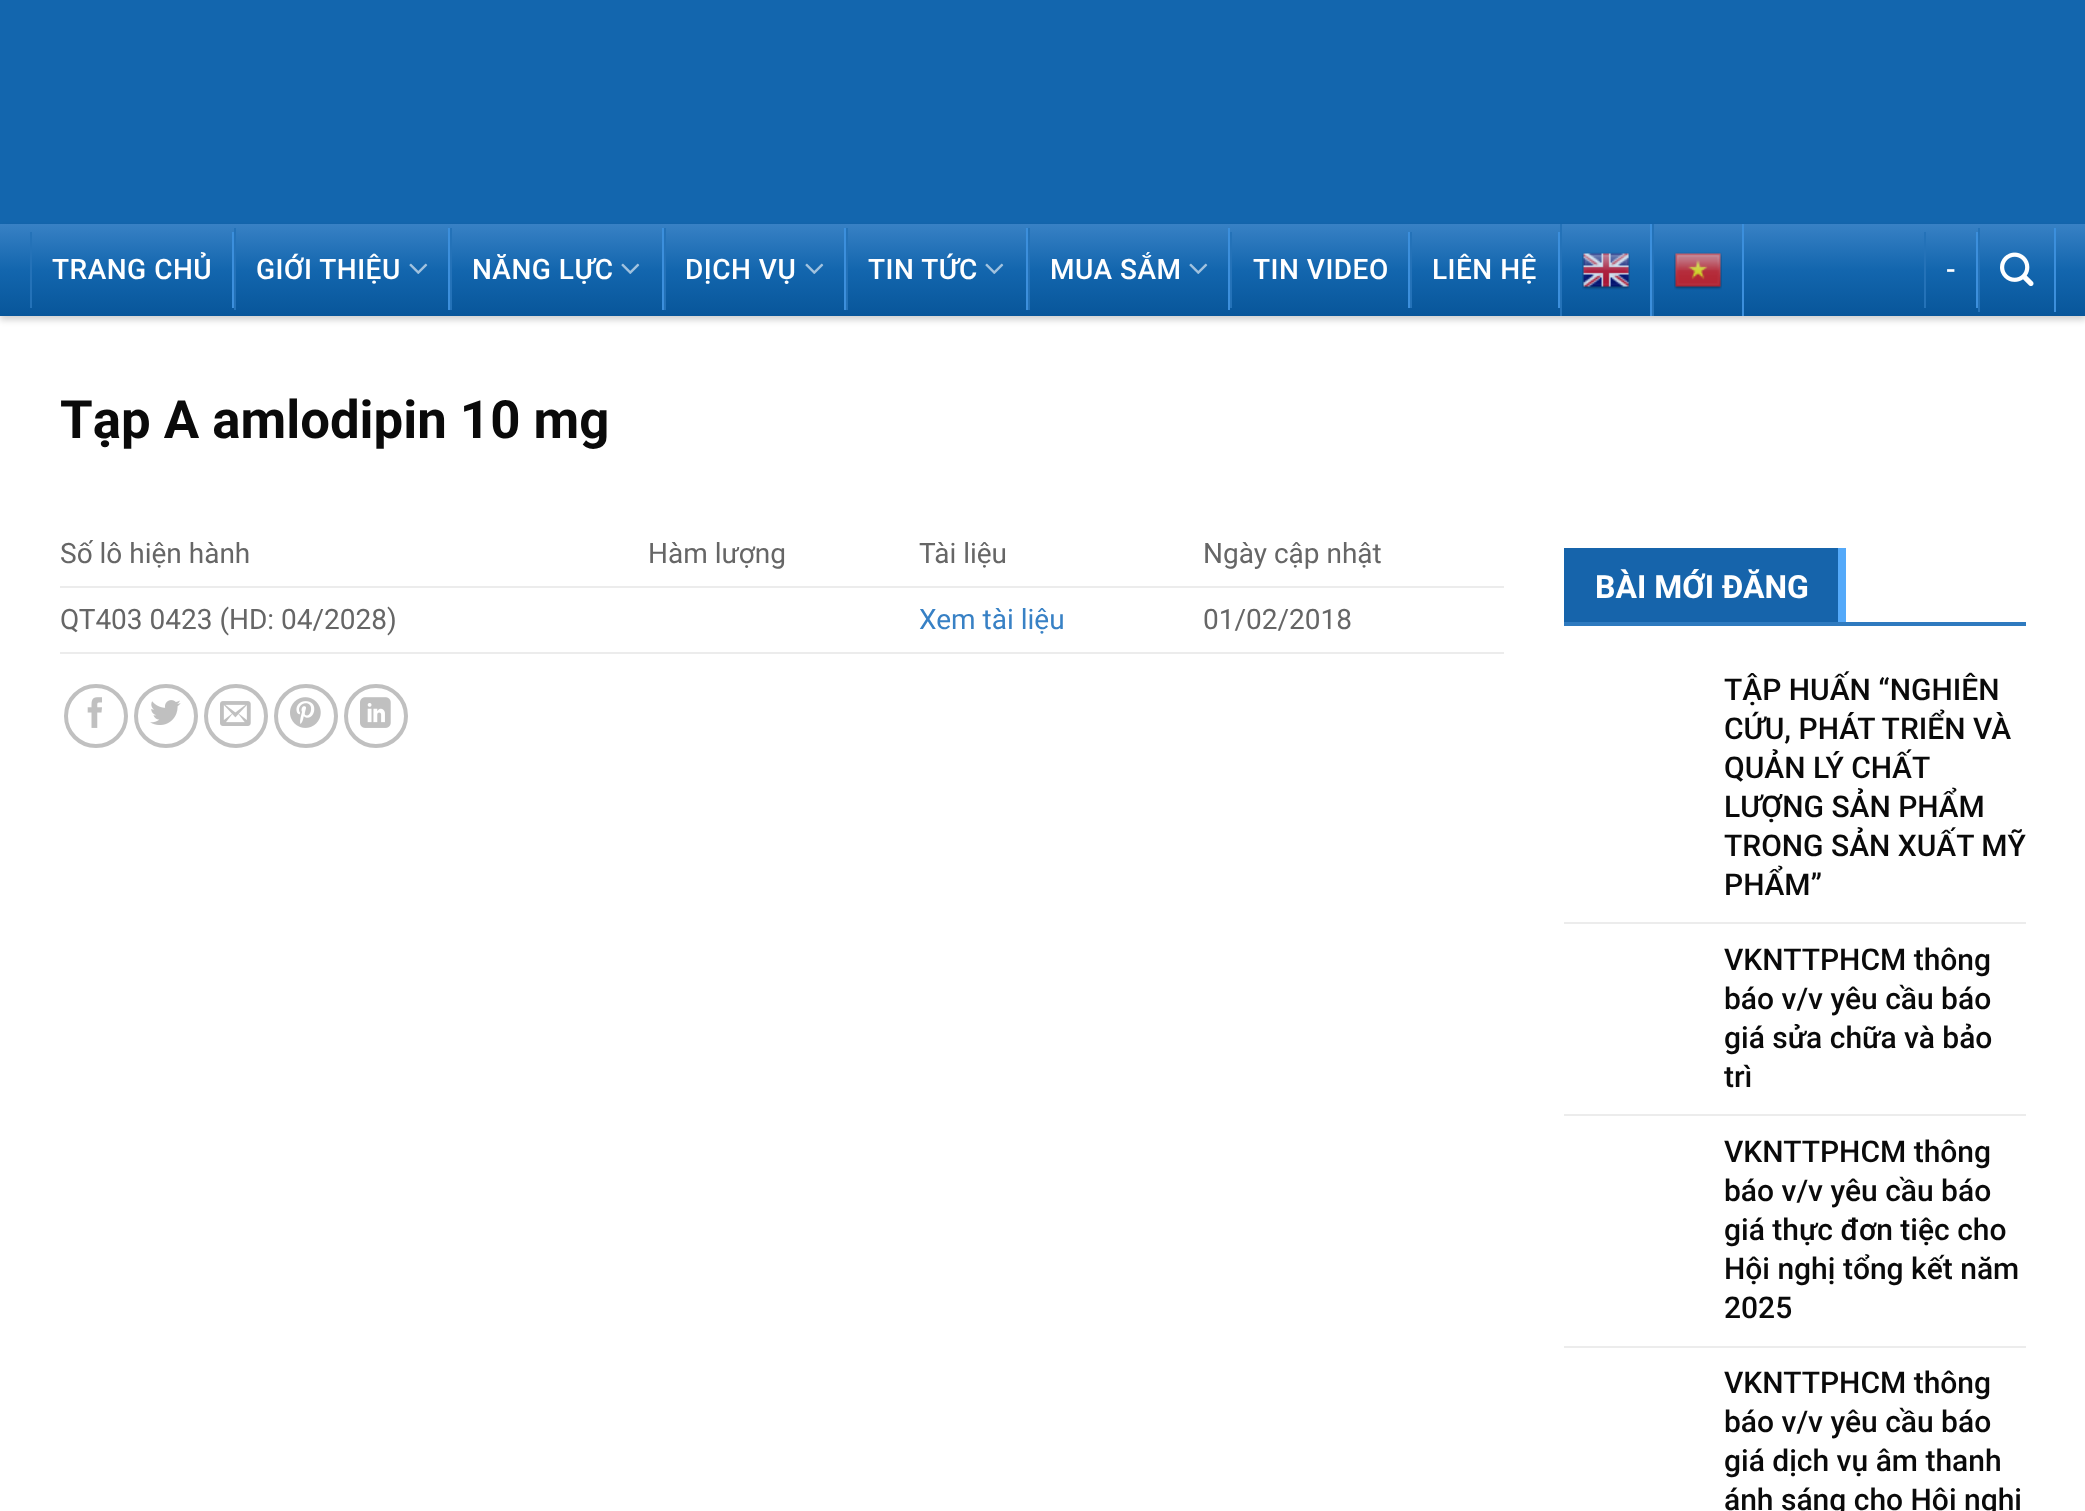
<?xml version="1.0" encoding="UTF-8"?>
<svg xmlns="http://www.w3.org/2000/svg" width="2085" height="1511">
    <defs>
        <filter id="blur1" x="-50%" y="-200%" width="200%" height="500%"><feGaussianBlur stdDeviation="3"/></filter>
        <linearGradient id="g1" gradientUnits="userSpaceOnUse" x1="1043" y1="224" x2="1043" y2="316"><stop offset="0" stop-color="#3881C5"/><stop offset="0.5" stop-color="#1366AE"/><stop offset="1" stop-color="#08569A"/></linearGradient>
    </defs>
    <rect width="100%" height="100%" fill="#1366AE"/>
    <rect x="0" y="316" width="2085" height="1195" fill="#FFFFFF"/>
    <rect x="0" y="228" width="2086" height="92" fill="#000000" fill-opacity="0.18" filter="url(#blur1)"/>
    <rect x="0" y="224" width="2085" height="92" fill="url(#g1)"/>
    <rect x="232" y="232" width="2" height="76" fill="#3C8FDC"/>
    <rect x="30" y="232" width="2" height="76" fill="#2472B8"/>
    <text x="52" y="279" font-family="Roboto" font-size="28" font-weight="500" letter-spacing="0.5" fill="#FFFFFF">TRANG CHỦ</text>
    <rect x="448" y="228" width="2" height="82" fill="#3C8FDC"/>
    <rect x="234" y="228" width="2" height="82" fill="#2472B8"/>
    <text x="256" y="279" font-family="Roboto" font-size="28" font-weight="500" letter-spacing="0.5" fill="#FFFFFF">GIỚI THIỆU</text>
    <image x="409" y="263" width="19" height="11" href="img_01.png"/>
    <rect x="662" y="228" width="2" height="82" fill="#3C8FDC"/>
    <rect x="450" y="228" width="2" height="82" fill="#2472B8"/>
    <text x="472" y="279" font-family="Roboto" font-size="28" font-weight="500" letter-spacing="0.5" fill="#FFFFFF">NĂNG LỰC</text>
    <image x="621" y="263" width="19" height="11" href="img_01.png"/>
    <rect x="844" y="228" width="2" height="82" fill="#3C8FDC"/>
    <rect x="664" y="228" width="2" height="82" fill="#2472B8"/>
    <text x="685" y="279" font-family="Roboto" font-size="28" font-weight="500" letter-spacing="0.5" fill="#FFFFFF">DỊCH VỤ</text>
    <image x="805" y="263" width="19" height="11" href="img_01.png"/>
    <rect x="1026" y="228" width="2" height="82" fill="#3C8FDC"/>
    <rect x="846" y="228" width="2" height="82" fill="#2472B8"/>
    <text x="868" y="279" font-family="Roboto" font-size="28" font-weight="500" letter-spacing="0.5" fill="#FFFFFF">TIN TỨC</text>
    <image x="985" y="263" width="19" height="11" href="img_01.png"/>
    <rect x="1228" y="228" width="2" height="82" fill="#3C8FDC"/>
    <rect x="1028" y="228" width="2" height="82" fill="#2472B8"/>
    <text x="1050" y="279" font-family="Roboto" font-size="28" font-weight="500" letter-spacing="0.5" fill="#FFFFFF">MUA SẮM</text>
    <image x="1189" y="263" width="19" height="11" href="img_01.png"/>
    <rect x="1408" y="232" width="2" height="76" fill="#3C8FDC"/>
    <rect x="1230" y="232" width="2" height="76" fill="#2472B8"/>
    <text x="1253" y="279" font-family="Roboto" font-size="28" font-weight="500" letter-spacing="0.5" fill="#FFFFFF">TIN VIDEO</text>
    <rect x="1558" y="232" width="2" height="76" fill="#3C8FDC"/>
    <rect x="1410" y="232" width="2" height="76" fill="#2472B8"/>
    <text x="1432" y="279" font-family="Roboto" font-size="28" font-weight="500" letter-spacing="0.5" fill="#FFFFFF">LIÊN HỆ</text>
    <rect x="1650" y="224" width="2" height="92" fill="#3C8FDC"/>
    <rect x="1560" y="224" width="2" height="92" fill="#2472B8"/>
    <image x="1582" y="252" width="48" height="38" href="img_02.png"/>
    <rect x="1742" y="224" width="2" height="92" fill="#3C8FDC"/>
    <rect x="1652" y="224" width="2" height="92" fill="#2472B8"/>
    <image x="1674" y="252" width="48" height="38" href="img_03.png"/>
    <rect x="1976" y="232" width="2" height="76" fill="#3C8FDC"/>
    <rect x="1924" y="232" width="2" height="76" fill="#2472B8"/>
    <text x="1946" y="279" font-family="Roboto" font-size="28" font-weight="500" letter-spacing="0.5" fill="#FFFFFF">-</text>
    <rect x="2054" y="228" width="2" height="84" fill="#3C8FDC"/>
    <rect x="1978" y="228" width="2" height="84" fill="#2472B8"/>
    <image x="2000" y="252" width="34" height="35" href="img_04.png"/>
    <text x="60" y="438" font-family="Roboto" font-size="52.75" font-weight="700" fill="#0A0A0A">Tạp A amlodipin 10 mg</text>
    <rect x="60" y="586" width="1444" height="2" fill="#ECECEC"/>
    <text x="60" y="563" font-family="Roboto" font-size="28" fill="#666666">Số lô hiện hành</text>
    <text x="648" y="563" font-family="Roboto" font-size="28" fill="#666666">Hàm lượng</text>
    <text x="919" y="563" font-family="Roboto" font-size="28" fill="#666666">Tài liệu</text>
    <text x="1203" y="563" font-family="Roboto" font-size="28" fill="#666666">Ngày cập nhật</text>
    <rect x="60" y="652" width="1444" height="2" fill="#ECECEC"/>
    <text x="60" y="629" font-family="Roboto" font-size="28" fill="#666666">QT403 0423 (HD: 04/2028)</text>
    <text x="919" y="629" font-family="Roboto" font-size="28" fill="#3881C5">Xem tài liệu</text>
    <text x="1203" y="629" font-family="Roboto" font-size="28" fill="#666666">01/02/2018</text>
    <circle cx="96" cy="716" r="30" fill="none" stroke="#C0C0C0" stroke-width="4"/>
    <image x="87" y="697" width="15" height="31" href="img_05.png"/>
    <circle cx="166" cy="716" r="30" fill="none" stroke="#C0C0C0" stroke-width="4"/>
    <image x="150" y="700" width="31" height="25" href="img_06.png"/>
    <circle cx="236" cy="716" r="30" fill="none" stroke="#C0C0C0" stroke-width="4"/>
    <image x="220" y="701" width="31" height="25" href="img_07.png"/>
    <circle cx="306" cy="716" r="30" fill="none" stroke="#C0C0C0" stroke-width="4"/>
    <image x="290" y="697" width="31" height="31" href="img_08.png"/>
    <circle cx="376" cy="716" r="30" fill="none" stroke="#C0C0C0" stroke-width="4"/>
    <image x="360" y="697" width="31" height="31" href="img_09.png"/>
    <rect x="1564" y="622" width="462" height="4" fill="#2E7ABF"/>
    <rect x="1564" y="548" width="274" height="74" fill="#1664AB"/>
    <rect x="1838" y="548" width="8" height="74" fill="#54A9F9"/>
    <text x="1595" y="598" font-family="Roboto" font-size="32" font-weight="700" fill="#FFFFFF">BÀI MỚI ĐĂNG</text>
    <rect x="1564" y="922" width="462" height="2" fill="#ECECEC"/>
    <text font-family="Roboto" font-size="30" font-weight="500" fill="#0A0A0A">
        <tspan x="1724" y="700">TẬP HUẤN “NGHIÊN</tspan>
        <tspan x="1724" y="739">CỨU, PHÁT TRIỂN VÀ</tspan>
        <tspan x="1724" y="778">QUẢN LÝ CHẤT</tspan>
        <tspan x="1724" y="817">LƯỢNG SẢN PHẨM</tspan>
        <tspan x="1724" y="856">TRONG SẢN XUẤT MỸ</tspan>
        <tspan x="1724" y="895">PHẨM”</tspan>
    </text>
    <rect x="1564" y="1114" width="462" height="2" fill="#ECECEC"/>
    <text font-family="Roboto" font-size="30" font-weight="500" fill="#0A0A0A">
        <tspan x="1724" y="970">VKNTTPHCM thông</tspan>
        <tspan x="1724" y="1009">báo v/v yêu cầu báo</tspan>
        <tspan x="1724" y="1048">giá sửa chữa và bảo</tspan>
        <tspan x="1724" y="1087">trì</tspan>
    </text>
    <rect x="1564" y="1346" width="462" height="2" fill="#ECECEC"/>
    <text font-family="Roboto" font-size="30" font-weight="500" fill="#0A0A0A">
        <tspan x="1724" y="1162">VKNTTPHCM thông</tspan>
        <tspan x="1724" y="1201">báo v/v yêu cầu báo</tspan>
        <tspan x="1724" y="1240">giá thực đơn tiệc cho</tspan>
        <tspan x="1724" y="1279">Hội nghị tổng kết năm</tspan>
        <tspan x="1724" y="1318">2025</tspan>
    </text>
    <text font-family="Roboto" font-size="30" font-weight="500" fill="#0A0A0A">
        <tspan x="1724" y="1393">VKNTTPHCM thông</tspan>
        <tspan x="1724" y="1432">báo v/v yêu cầu báo</tspan>
        <tspan x="1724" y="1471">giá dịch vụ âm thanh</tspan>
        <tspan x="1724" y="1510">ánh sáng cho Hội nghị</tspan>
    </text>
</svg>
